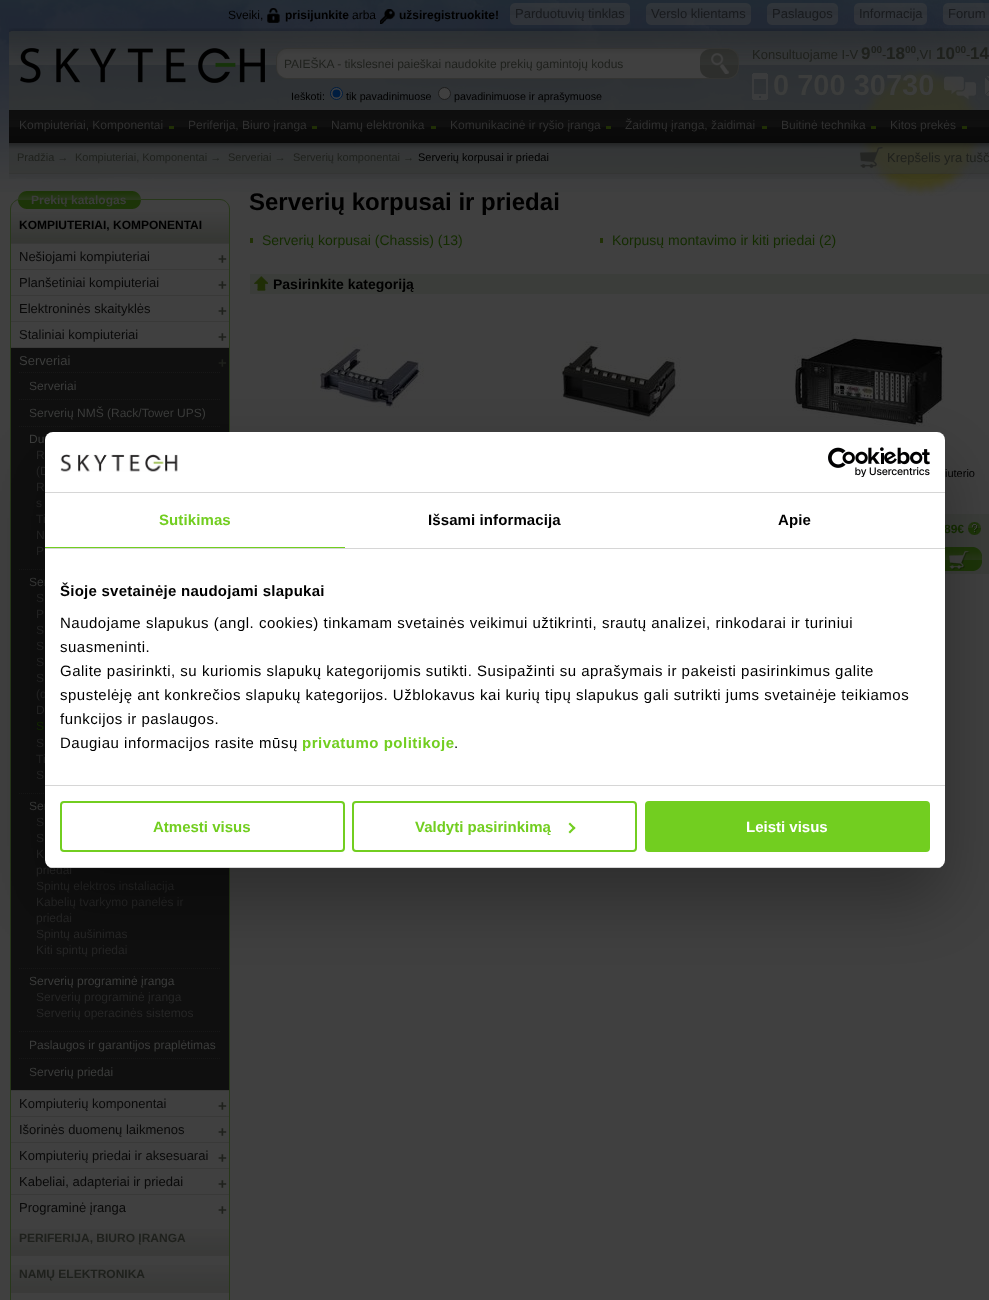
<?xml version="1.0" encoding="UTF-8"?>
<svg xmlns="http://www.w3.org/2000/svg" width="989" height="1300">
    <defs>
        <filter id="blur1" x="-50%" y="-200%" width="200%" height="500%"><feGaussianBlur stdDeviation="34"/></filter>
        <clipPath id="clip1"><rect x="45" y="432" width="900" height="436" rx="8"/></clipPath>
    </defs>
    <rect width="100%" height="100%" fill="#404040"/>
    <image x="0" y="0" width="989" height="192" href="img_01.png"/>
    <text x="228" y="19" font-family="Liberation Sans" font-size="12" fill="#000000">Sveiki,</text>
    <image x="267" y="8" width="13" height="15" href="img_02.png"/>
    <text x="285" y="19" font-family="Liberation Sans" font-size="12" font-weight="700" fill="#000000">prisijunkite</text>
    <text x="352" y="19" font-family="Liberation Sans" font-size="12" fill="#000000">arba</text>
    <image x="380" y="9" width="15" height="15" href="img_03.png"/>
    <text x="399" y="19" font-family="Liberation Sans" font-size="12" font-weight="700" fill="#000000">užsiregistruokite!</text>
    <image x="510" y="3" width="5" height="22" href="img_04.png"/>
    <image x="515" y="3" width="110" height="22" href="img_05.png"/>
    <text x="515" y="18" font-family="Liberation Sans" font-size="13" fill="#181A1D">Parduotuvių tinklas</text>
    <image x="625" y="3" width="5" height="22" href="img_06.png"/>
    <image x="646" y="3" width="5" height="22" href="img_07.png"/>
    <image x="651" y="3" width="95" height="22" href="img_08.png"/>
    <text x="651" y="18" font-family="Liberation Sans" font-size="13" fill="#181A1D">Verslo klientams</text>
    <image x="746" y="3" width="5" height="22" href="img_09.png"/>
    <image x="767" y="3" width="5" height="22" href="img_10.png"/>
    <image x="772" y="3" width="61" height="22" href="img_11.png"/>
    <text x="772" y="18" font-family="Liberation Sans" font-size="13" fill="#181A1D">Paslaugos</text>
    <image x="833" y="3" width="5" height="22" href="img_12.png"/>
    <image x="854" y="3" width="5" height="22" href="img_13.png"/>
    <image x="859" y="3" width="63" height="22" href="img_14.png"/>
    <image x="922" y="3" width="5" height="22" href="img_15.png"/>
    <text x="859" y="18" font-family="Liberation Sans" font-size="13" fill="#181A1D">Informacija</text>
    <image x="943" y="3" width="5" height="22" href="img_16.png"/>
    <image x="948" y="3" width="41" height="22" href="img_17.png"/>
    <text x="948" y="18" font-family="Liberation Sans" font-size="13" fill="#181A1D">Forum</text>
    <image x="859" y="68" width="123" height="128" href="img_42.png"/>
    <image x="9" y="28" width="980" height="151" href="img_18.png"/>
    <image x="20" y="48" width="245" height="35" href="img_19.png"/>
    <image x="276" y="48" width="463" height="31" href="img_20.png"/>
    <text x="284" y="68" font-family="Liberation Sans" font-size="12" fill="#1E201C">PAIEŠKA - tikslesnei paieškai naudokite prekių gamintojų kodus</text>
    <text x="291" y="100" font-family="Liberation Sans" font-size="10.7" fill="#000000">Ieškoti:</text>
    <circle cx="336.5" cy="93.5" r="6" fill="#404040" stroke="#001D40"/>
    <circle cx="336.5" cy="93.5" r="4" fill="#001D40"/>
    <text x="346" y="100" font-family="Liberation Sans" font-size="10.7" fill="#000000">tik pavadinimuose</text>
    <circle cx="444.5" cy="93.5" r="6" fill="#404040" stroke="#1E1E1E"/>
    <text x="454" y="100" font-family="Liberation Sans" font-size="10.7" fill="#000000">pavadinimuose ir aprašymuose</text>
    <text x="752" y="59" font-family="Liberation Sans" font-size="13" fill="#1E201C">Konsultuojame I-V</text>
    <text x="861" y="59" font-family="Liberation Sans" font-size="17" font-weight="700" fill="#1E201C">9</text>
    <text x="871" y="53" font-family="Liberation Sans" font-size="10" font-weight="700" fill="#1E201C">00</text>
    <text x="882" y="59" font-family="Liberation Sans" font-size="13" fill="#1E201C">-</text>
    <text x="886" y="59" font-family="Liberation Sans" font-size="17" font-weight="700" fill="#1E201C">18</text>
    <text x="905" y="53" font-family="Liberation Sans" font-size="10" font-weight="700" fill="#1E201C">00</text>
    <text x="916" y="59" font-family="Liberation Sans" font-size="13" fill="#1E201C">,VI</text>
    <text x="936" y="59" font-family="Liberation Sans" font-size="17" font-weight="700" fill="#1E201C">10</text>
    <text x="955" y="53" font-family="Liberation Sans" font-size="10" font-weight="700" fill="#1E201C">00</text>
    <text x="966" y="59" font-family="Liberation Sans" font-size="13" fill="#1E201C">-</text>
    <text x="970" y="59" font-family="Liberation Sans" font-size="17" font-weight="700" fill="#1E201C">14</text>
    <image x="752" y="73" width="16" height="27" href="img_21.png"/>
    <text x="773" y="95" font-family="Liberation Sans" font-size="29" font-weight="700" fill="#3C3D3C">0 700 30730</text>
    <image x="944" y="76" width="32" height="24" href="img_22.png"/>
    <image x="985" y="76" width="4" height="20" href="img_23.png"/>
    <image x="9" y="110" width="980" height="33" href="img_24.png"/>
    <rect x="169" y="126" width="5" height="3" fill="#202F06"/>
    <text x="19" y="129" font-family="Liberation Sans" font-size="12" fill="#303030">Kompiuteriai, Komponentai</text>
    <rect x="312" y="126" width="5" height="3" fill="#202F06"/>
    <text x="188" y="129" font-family="Liberation Sans" font-size="12" fill="#303030">Periferija, Biuro įranga</text>
    <rect x="431" y="126" width="5" height="3" fill="#202F06"/>
    <text x="331" y="129" font-family="Liberation Sans" font-size="12" fill="#303030">Namų elektronika</text>
    <rect x="606" y="126" width="5" height="3" fill="#202F06"/>
    <text x="450" y="129" font-family="Liberation Sans" font-size="12" fill="#303030">Komunikacinė ir ryšio įranga</text>
    <rect x="762" y="126" width="5" height="3" fill="#202F06"/>
    <text x="625" y="129" font-family="Liberation Sans" font-size="12" fill="#303030">Žaidimų įranga, žaidimai</text>
    <rect x="871" y="126" width="5" height="3" fill="#202F06"/>
    <text x="781" y="129" font-family="Liberation Sans" font-size="12" fill="#303030">Buitinė technika</text>
    <rect x="962" y="126" width="5" height="3" fill="#202F06"/>
    <text x="890" y="129" font-family="Liberation Sans" font-size="12" fill="#303030">Kitos prekės</text>
    <image x="9" y="143" width="980" height="6" href="img_25.png"/>
    <text x="17" y="161" font-family="Liberation Sans" font-size="11" fill="#1E201C">Pradžia →</text>
    <text x="75" y="161" font-family="Liberation Sans" font-size="11" fill="#1E201C">Kompiuteriai, Komponentai →</text>
    <text x="228" y="161" font-family="Liberation Sans" font-size="11" fill="#1E201C">Serveriai →</text>
    <text x="293" y="161" font-family="Liberation Sans" font-size="11" fill="#1E201C">Serverių komponentai →</text>
    <text x="418" y="161" font-family="Liberation Sans" font-size="11" fill="#000000">Serverių korpusai ir priedai</text>
    <image x="860" y="147" width="23" height="21" href="img_26.png"/>
    <text x="887" y="162" font-family="Liberation Sans" font-size="13" fill="#1E201C">Krepšelis yra tušč</text>
    <path d="M 20 199.5 H 220 C 225 199.5 229.5 204 229.5 209 V 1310.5 H 10.5 V 209 C 10.5 204 15 199.5 20 199.5 Z" fill="none" stroke="#27371A"/>
    <image x="18" y="191" width="9" height="18" href="img_27.png"/>
    <image x="27" y="191" width="105" height="18" href="img_28.png"/>
    <text x="31" y="204" font-family="Liberation Sans" font-size="12" font-weight="700" fill="#3C3D3C">Prekių katalogas</text>
    <image x="132" y="191" width="9" height="18" href="img_29.png"/>
    <image x="11" y="212" width="218" height="31" href="img_30.png"/>
    <text x="19" y="229" font-family="Liberation Sans" font-size="12" font-weight="700" fill="#000000">KOMPIUTERIAI, KOMPONENTAI</text>
    <rect x="11" y="243" width="218" height="1" fill="#393938"/>
    <text x="19" y="261" font-family="Liberation Sans" font-size="13" fill="#090909">Nešiojami kompiuteriai</text>
    <text x="218" y="264" font-family="Liberation Sans" font-size="15" font-weight="700" fill="#1E201C">+</text>
    <rect x="11" y="269" width="218" height="1" fill="#393938"/>
    <text x="19" y="287" font-family="Liberation Sans" font-size="13" fill="#090909">Planšetiniai kompiuteriai</text>
    <text x="218" y="290" font-family="Liberation Sans" font-size="15" font-weight="700" fill="#1E201C">+</text>
    <rect x="11" y="295" width="218" height="1" fill="#393938"/>
    <text x="19" y="313" font-family="Liberation Sans" font-size="13" fill="#090909">Elektroninės skaityklės</text>
    <text x="218" y="316" font-family="Liberation Sans" font-size="15" font-weight="700" fill="#1E201C">+</text>
    <rect x="11" y="321" width="218" height="1" fill="#393938"/>
    <text x="19" y="339" font-family="Liberation Sans" font-size="13" fill="#090909">Staliniai kompiuteriai</text>
    <text x="218" y="342" font-family="Liberation Sans" font-size="15" font-weight="700" fill="#1E201C">+</text>
    <rect x="11" y="348" width="218" height="742" fill="#0F0F0F"/>
    <rect x="11" y="347" width="218" height="1" fill="#393938"/>
    <text x="19" y="365" font-family="Liberation Sans" font-size="13" fill="#3C3D3C">Serveriai</text>
    <text x="218" y="368" font-family="Liberation Sans" font-size="15" font-weight="700" fill="#1E201C">+</text>
    <path d="M 19 372.5 H 221" fill="none" stroke="#171717" stroke-dasharray="1 1"/>
    <text x="29" y="390" font-family="Liberation Sans" font-size="12" fill="#3C3D3C">Serveriai</text>
    <path d="M 19 399.5 H 221" fill="none" stroke="#171717" stroke-dasharray="1 1"/>
    <text x="29" y="417" font-family="Liberation Sans" font-size="12" fill="#3C3D3C">Serverių NMŠ (Rack/Tower UPS)</text>
    <path d="M 19 426.5 H 221" fill="none" stroke="#171717" stroke-dasharray="1 1"/>
    <text x="29" y="443" font-family="Liberation Sans" font-size="12" fill="#3C3D3C">Du</text>
    <text font-family="Liberation Sans" font-size="12" fill="#262626">
        <tspan x="36" y="459">R</tspan>
        <tspan x="36" y="475">(D</tspan>
        <tspan x="36" y="491">R</tspan>
        <tspan x="36" y="507">s</tspan>
        <tspan x="36" y="523">Ti</tspan>
        <tspan x="36" y="539">N</tspan>
        <tspan x="36" y="555">Pr</tspan>
    </text>
    <path d="M 19 569.5 H 221" fill="none" stroke="#171717" stroke-dasharray="1 1"/>
    <text x="29" y="586" font-family="Liberation Sans" font-size="12" fill="#3C3D3C">Ser</text>
    <text font-family="Liberation Sans" font-size="12" fill="#262626">
        <tspan x="36" y="602">S</tspan>
        <tspan x="36" y="618">P</tspan>
        <tspan x="36" y="634">S</tspan>
        <tspan x="36" y="650">S</tspan>
        <tspan x="36" y="666">S</tspan>
        <tspan x="36" y="682">S</tspan>
        <tspan x="36" y="698">(d</tspan>
        <tspan x="36" y="714">D</tspan>
    </text>
    <text x="36" y="730" font-family="Liberation Sans" font-size="12" fill="#142C00">S</text>
    <text font-family="Liberation Sans" font-size="12" fill="#262626">
        <tspan x="36" y="747">S</tspan>
        <tspan x="36" y="763">Ti</tspan>
        <tspan x="36" y="779">S</tspan>
    </text>
    <path d="M 19 793.5 H 221" fill="none" stroke="#171717" stroke-dasharray="1 1"/>
    <text x="29" y="810" font-family="Liberation Sans" font-size="12" fill="#3C3D3C">Ser</text>
    <text font-family="Liberation Sans" font-size="12" fill="#262626">
        <tspan x="36" y="826">S</tspan>
        <tspan x="36" y="842">S</tspan>
        <tspan x="36" y="858">K</tspan>
        <tspan x="36" y="874">priedai</tspan>
        <tspan x="36" y="890">Spintų elektros instaliacija</tspan>
        <tspan x="36" y="906">Kabelių tvarkymo panelės ir</tspan>
        <tspan x="36" y="922">priedai</tspan>
        <tspan x="36" y="938">Spintų aušinimas</tspan>
        <tspan x="36" y="954">Kiti spintų priedai</tspan>
    </text>
    <path d="M 19 968.5 H 221" fill="none" stroke="#171717" stroke-dasharray="1 1"/>
    <text x="29" y="985" font-family="Liberation Sans" font-size="12" fill="#3C3D3C">Serverių programinė įranga</text>
    <text font-family="Liberation Sans" font-size="12" fill="#262626">
        <tspan x="36" y="1001">Serverių programinė įranga</tspan>
        <tspan x="36" y="1017">Serverių operacinės sistemos</tspan>
    </text>
    <path d="M 19 1031.5 H 221" fill="none" stroke="#171717" stroke-dasharray="1 1"/>
    <text x="29" y="1049" font-family="Liberation Sans" font-size="12" fill="#3C3D3C">Paslaugos ir garantijos praplėtimas</text>
    <path d="M 19 1058.5 H 221" fill="none" stroke="#171717" stroke-dasharray="1 1"/>
    <text x="29" y="1076" font-family="Liberation Sans" font-size="12" fill="#3C3D3C">Serverių priedai</text>
    <rect x="11" y="1090" width="218" height="1" fill="#393938"/>
    <text x="19" y="1108" font-family="Liberation Sans" font-size="13" fill="#090909">Kompiuterių komponentai</text>
    <text x="218" y="1111" font-family="Liberation Sans" font-size="15" font-weight="700" fill="#1E201C">+</text>
    <rect x="11" y="1116" width="218" height="1" fill="#393938"/>
    <text x="19" y="1134" font-family="Liberation Sans" font-size="13" fill="#090909">Išorinės duomenų laikmenos</text>
    <text x="218" y="1137" font-family="Liberation Sans" font-size="15" font-weight="700" fill="#1E201C">+</text>
    <rect x="11" y="1142" width="218" height="1" fill="#393938"/>
    <text x="19" y="1160" font-family="Liberation Sans" font-size="13" fill="#090909">Kompiuterių priedai ir aksesuarai</text>
    <text x="218" y="1163" font-family="Liberation Sans" font-size="15" font-weight="700" fill="#1E201C">+</text>
    <rect x="11" y="1168" width="218" height="1" fill="#393938"/>
    <text x="19" y="1186" font-family="Liberation Sans" font-size="13" fill="#090909">Kabeliai, adapteriai ir priedai</text>
    <text x="218" y="1189" font-family="Liberation Sans" font-size="15" font-weight="700" fill="#1E201C">+</text>
    <rect x="11" y="1194" width="218" height="1" fill="#393938"/>
    <text x="19" y="1212" font-family="Liberation Sans" font-size="13" fill="#090909">Programinė įranga</text>
    <text x="218" y="1215" font-family="Liberation Sans" font-size="15" font-weight="700" fill="#1E201C">+</text>
    <image x="11" y="1229" width="218" height="27" href="img_31.png"/>
    <text x="19" y="1242" font-family="Liberation Sans" font-size="12" font-weight="700" fill="#1E201C">PERIFERIJA, BIURO ĮRANGA</text>
    <image x="11" y="1265" width="218" height="28" href="img_32.png"/>
    <text x="19" y="1278" font-family="Liberation Sans" font-size="12" font-weight="700" fill="#1E201C">NAMŲ ELEKTRONIKA</text>
    <text x="249" y="210" font-family="Liberation Sans" font-size="24" font-weight="700" fill="#000000">Serverių korpusai ir priedai</text>
    <text x="262" y="245" font-family="Liberation Sans" font-size="14" fill="#142C00">Serverių korpusai (Chassis) (13)</text>
    <rect x="250" y="238" width="3" height="5" fill="#202F06"/>
    <text x="612" y="245" font-family="Liberation Sans" font-size="14" fill="#142C00">Korpusų montavimo ir kiti priedai (2)</text>
    <rect x="600" y="238" width="3" height="5" fill="#202F06"/>
    <rect x="250" y="274" width="739" height="20" fill="#3B3D3A"/>
    <image x="254" y="276" width="14" height="15" href="img_33.png"/>
    <text x="273" y="289" font-family="Liberation Sans" font-size="14" font-weight="700" fill="#000000">Pasirinkite kategoriją</text>
    <image x="312" y="337" width="112" height="71" href="img_34.png"/>
    <image x="561" y="341" width="120" height="80" href="img_35.png"/>
    <image x="794" y="332" width="150" height="95" href="img_36.png"/>
    <text x="945" y="477" font-family="Liberation Sans" font-size="11" fill="#000000">iuterio</text>
    <rect x="945" y="514" width="44" height="60" fill="#3B3D3A"/>
    <text x="944" y="533" font-family="Liberation Sans" font-size="12" font-weight="700" fill="#142C00">89€</text>
    <image x="968" y="522" width="13" height="13" href="img_37.png"/>
    <image x="945" y="547" width="1" height="24" href="img_38.png"/>
    <image x="946" y="547" width="24" height="24" href="img_39.png"/>
    <image x="949" y="551" width="21" height="19" href="img_40.png"/>
    <image x="970" y="547" width="12" height="24" href="img_41.png"/>
    <rect x="45" y="464" width="900" height="436" rx="8" fill="#000000" fill-opacity="0.3" filter="url(#blur1)"/>
    <rect x="45" y="432" width="900" height="436" rx="8" fill="#FFFFFF"/>
    <rect x="45" y="492" width="900" height="1" fill="#D6D6D6"/>
    <image x="60" y="454" width="118" height="18" href="img_43.png"/>
    <image x="828" y="447" width="102" height="30" href="img_44.png"/>
    <rect x="45" y="548" width="900" height="1" fill="#D6D6D6"/>
    <rect x="45" y="547" width="300" height="1" fill="#72CE20"/>
    <text x="159" y="525" font-family="Liberation Sans" font-size="15" font-weight="700" letter-spacing="0.1" fill="#72CE20">Sutikimas</text>
    <text x="428" y="525" font-family="Liberation Sans" font-size="15" font-weight="700" letter-spacing="0.1" fill="#000000">Išsami informacija</text>
    <text x="778" y="525" font-family="Liberation Sans" font-size="15" font-weight="700" letter-spacing="0.1" fill="#000000">Apie</text>
    <rect x="45" y="785" width="900" height="1" fill="#D6D6D6"/>
    <text x="60" y="596" font-family="Liberation Sans" font-size="15" font-weight="700" letter-spacing="0.25" fill="#000000">Šioje svetainėje naudojami slapukai</text>
    <text font-family="Liberation Sans" font-size="15" letter-spacing="0.5" fill="#000000">
        <tspan x="60" y="628">Naudojame slapukus (angl. cookies) tinkamam svetainės veikimui užtikrinti, srautų analizei, rinkodarai ir turiniui</tspan>
        <tspan x="60" y="652">suasmeninti.</tspan>
        <tspan x="60" y="676">Galite pasirinkti, su kuriomis slapukų kategorijomis sutikti. Susipažinti su aprašymais ir pakeisti pasirinkimus galite</tspan>
        <tspan x="60" y="700">spustelėję ant konkrečios slapukų kategorijos. Užblokavus kai kurių tipų slapukus gali sutrikti jums svetainėje teikiamos</tspan>
        <tspan x="60" y="724">funkcijos ir paslaugos.</tspan>
        <tspan x="60" y="748">Daugiau informacijos rasite mūsų</tspan>
    </text>
    <text x="302" y="748" font-family="Liberation Sans" font-size="15" font-weight="700" letter-spacing="0.5" fill="#72CE20">privatumo politikoje</text>
    <text x="454" y="748" font-family="Liberation Sans" font-size="15" letter-spacing="0.5" fill="#000000">.</text>
    <g clip-path="url(#clip1)">
        <rect x="45" y="867" width="900" height="1" fill="#D6D6D6"/>
    </g>
    <rect x="61" y="802" width="283" height="49" rx="3" fill="none" stroke="#72CE20" stroke-width="2"/>
    <text x="153" y="832" font-family="Liberation Sans" font-size="15" font-weight="700" fill="#72CE20">Atmesti visus</text>
    <rect x="353" y="802" width="283" height="49" rx="3" fill="none" stroke="#72CE20" stroke-width="2"/>
    <text x="415" y="832" font-family="Liberation Sans" font-size="15" font-weight="700" fill="#72CE20">Valdyti pasirinkimą</text>
    <path d="M 570 822.5 L 575.5 828 L 574 829.5 L 568.5 824 Z" fill="#72CE20"/>
    <path d="M 574 826.5 L 575.5 828 L 570 833.5 L 568.5 832 Z" fill="#72CE20"/>
    <rect x="646" y="802" width="283" height="49" rx="3" fill="#72CE20" stroke="#72CE20" stroke-width="2"/>
    <text x="746" y="832" font-family="Liberation Sans" font-size="15" font-weight="700" fill="#FFFFFF">Leisti visus</text>
</svg>
